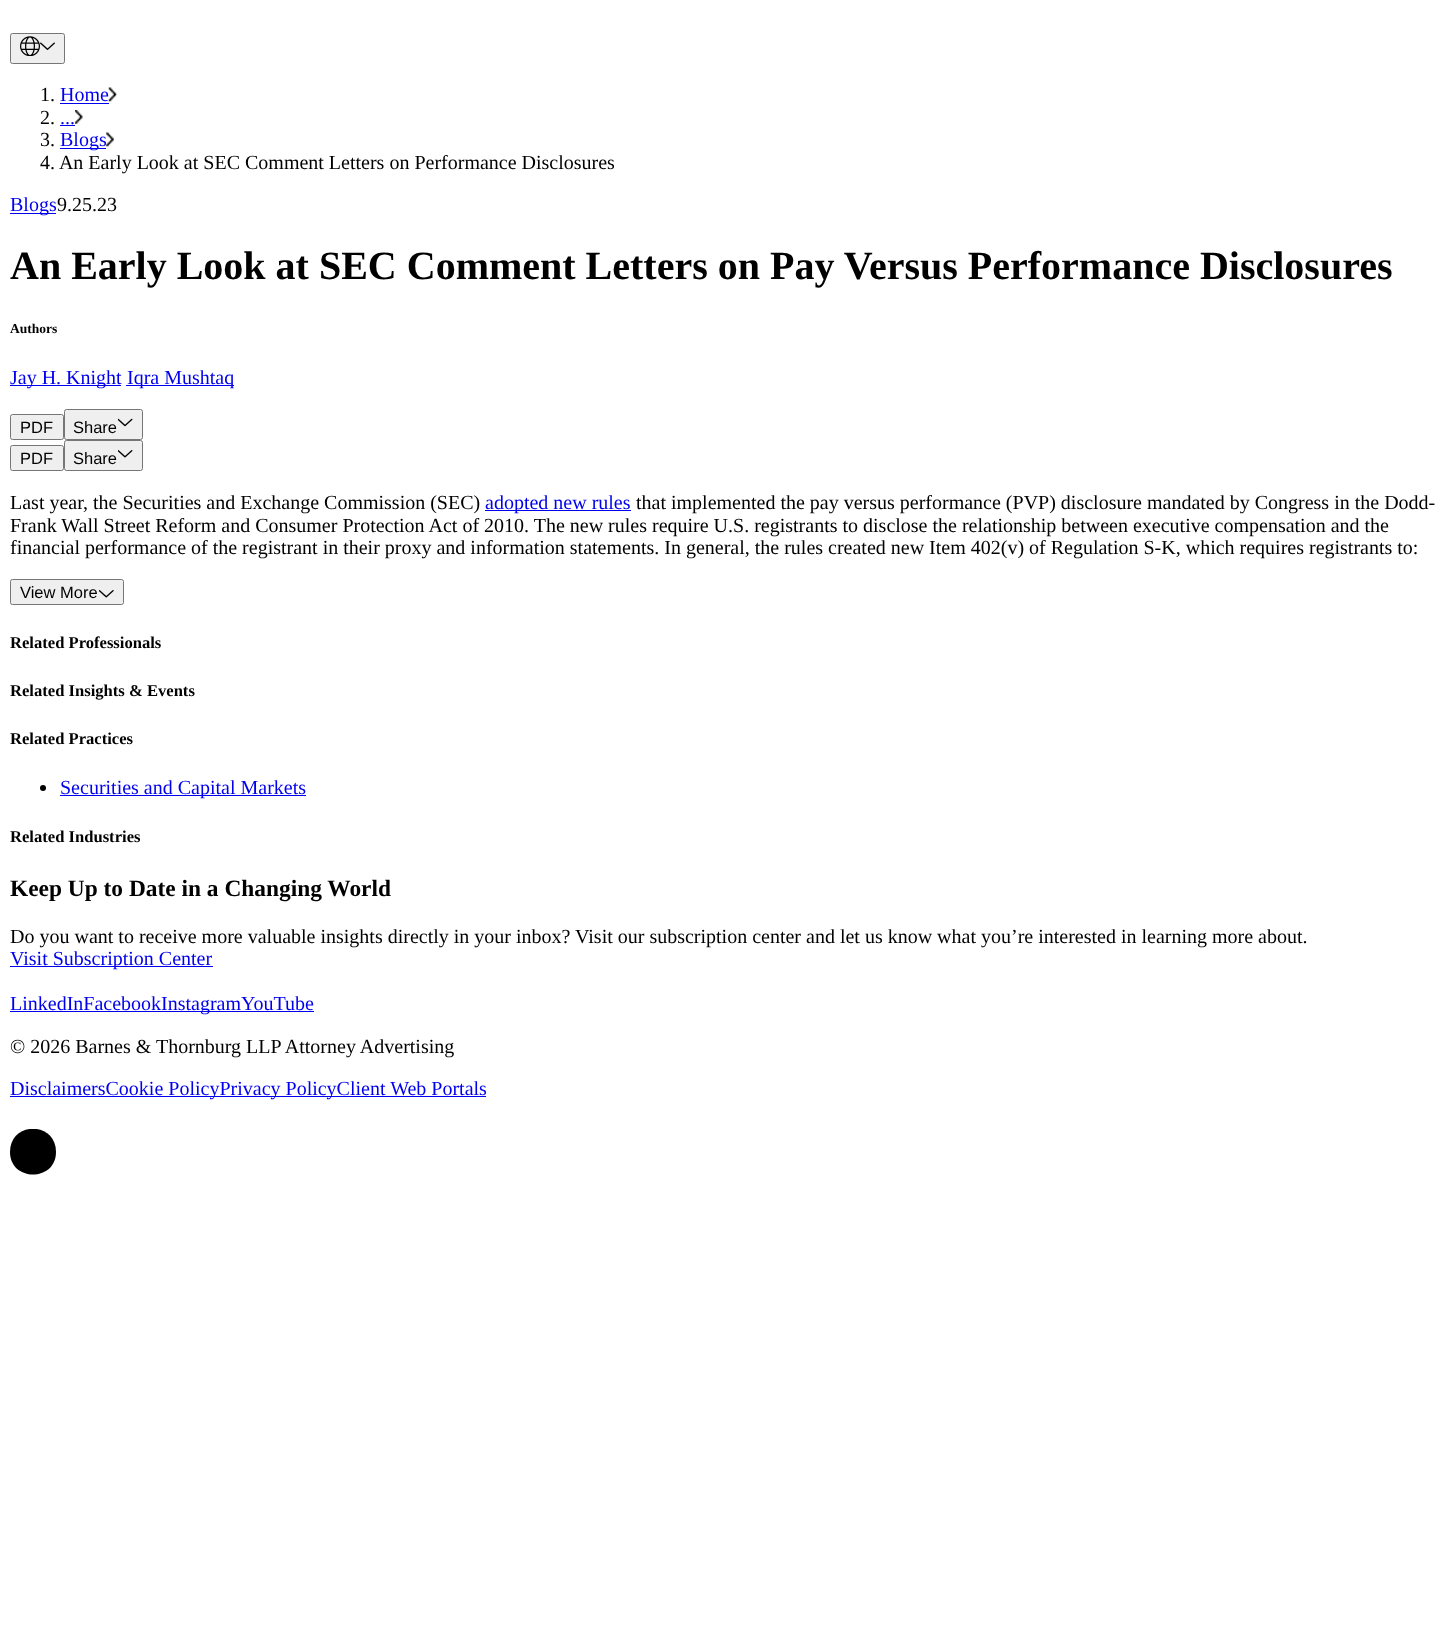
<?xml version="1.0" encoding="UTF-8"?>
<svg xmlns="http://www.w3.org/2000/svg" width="1454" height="1631">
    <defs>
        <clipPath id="clip1"><rect x="10" y="1129" width="46" height="46"/></clipPath>
    </defs>
    <rect width="100%" height="100%" fill="#FFFFFF"/>
    <rect x="10.5" y="33.5" width="54" height="30" rx="2" fill="#EFEFEF" stroke="#767676"/>
    <image x="20" y="36" width="20" height="20" href="img_01.png"/>
    <image x="40" y="42" width="15" height="8" href="img_02.png"/>
    <text x="40" y="101" font-family="Liberation Serif" font-size="20" fill="#000000">1.</text>
    <text x="60" y="101" font-family="Liberation Serif" font-size="20" fill="#0000EE">Home</text>
    <rect x="60" y="103" width="49" height="1" fill="#0000EE"/>
    <image x="108" y="87" width="9" height="15" href="img_03.png"/>
    <text x="40" y="124" font-family="Liberation Serif" font-size="20" fill="#000000">2.</text>
    <text x="60" y="124" font-family="Liberation Serif" font-size="20" fill="#0000EE">...</text>
    <rect x="60" y="125" width="15" height="1" fill="#0000EE"/>
    <image x="75" y="110" width="8" height="14" href="img_04.png"/>
    <text x="40" y="146" font-family="Liberation Serif" font-size="20" fill="#000000">3.</text>
    <rect x="60" y="148" width="46" height="1" fill="#0000EE"/>
    <text x="60" y="146" font-family="Liberation Serif" font-size="20" fill="#0000EE">Blogs</text>
    <image x="106" y="132" width="8" height="15" href="img_05.png"/>
    <text x="40" y="169" font-family="Liberation Serif" font-size="20" fill="#000000">4. An Early Look at SEC Comment Letters on Performance Disclosures</text>
    <rect x="10" y="213" width="46" height="1" fill="#0000EE"/>
    <text x="10" y="211" font-family="Liberation Serif" font-size="20" fill="#0000EE">Blogs</text>
    <text x="57" y="211" font-family="Liberation Serif" font-size="20" fill="#000000">9.25.23</text>
    <text x="10" y="279" font-family="Liberation Serif" font-size="40" font-weight="700" fill="#000000">An Early Look at SEC Comment Letters on Pay Versus Performance Disclosures</text>
    <text x="10" y="333" font-family="Liberation Serif" font-size="13.5" font-weight="700" fill="#000000">Authors</text>
    <rect x="10" y="385" width="111" height="1" fill="#0000EE"/>
    <text x="10" y="384" font-family="Liberation Serif" font-size="20" fill="#0000EE">Jay H. Knight</text>
    <rect x="126" y="385" width="108" height="1" fill="#0000EE"/>
    <text x="127" y="384" font-family="Liberation Serif" font-size="20" fill="#0000EE">Iqra Mushtaq</text>
    <rect x="10.5" y="414.5" width="53" height="25" rx="2" fill="#EFEFEF" stroke="#767676"/>
    <text x="20" y="433" font-family="Liberation Sans" font-size="16.5" fill="#000000">PDF</text>
    <rect x="64.5" y="409.5" width="78" height="30" rx="2" fill="#EFEFEF" stroke="#767676"/>
    <text x="73" y="433" font-family="Liberation Sans" font-size="16.5" fill="#000000">Share</text>
    <image x="118" y="418" width="15" height="9" href="img_06.png"/>
    <rect x="10.5" y="445.5" width="53" height="25" rx="2" fill="#EFEFEF" stroke="#767676"/>
    <text x="20" y="464" font-family="Liberation Sans" font-size="16.5" fill="#000000">PDF</text>
    <rect x="64.5" y="440.5" width="78" height="30" rx="2" fill="#EFEFEF" stroke="#767676"/>
    <text x="73" y="464" font-family="Liberation Sans" font-size="16.5" fill="#000000">Share</text>
    <image x="118" y="450" width="15" height="8" href="img_07.png"/>
    <text x="10" y="509" font-family="Liberation Serif" font-size="20" fill="#000000">Last year, the Securities and Exchange Commission (SEC)</text>
    <rect x="485" y="510" width="146" height="1" fill="#0000EE"/>
    <text x="485" y="509" font-family="Liberation Serif" font-size="20" fill="#0000EE">adopted new rules</text>
    <text x="636" y="509" font-family="Liberation Serif" font-size="20" fill="#000000">that implemented the pay versus performance (PVP) disclosure mandated by Congress in the Dodd-</text>
    <text font-family="Liberation Serif" font-size="20" fill="#000000">
        <tspan x="10" y="532">Frank Wall Street Reform and Consumer Protection Act of 2010. The new rules require U.S. registrants to disclose the relationship between executive compensation and the</tspan>
        <tspan x="10" y="554">financial performance of the registrant in their proxy and information statements. In general, the rules created new Item 402(v) of Regulation S-K, which requires registrants to:</tspan>
    </text>
    <rect x="10.5" y="579.5" width="113" height="25" rx="2" fill="#EFEFEF" stroke="#767676"/>
    <text x="20" y="598" font-family="Liberation Sans" font-size="16.5" fill="#000000">View More</text>
    <image x="99" y="590" width="15" height="8" href="img_08.png"/>
    <text x="10" y="648" font-family="Liberation Serif" font-size="16.6" font-weight="700" fill="#000000">Related Professionals</text>
    <text x="10" y="696" font-family="Liberation Serif" font-size="16.6" font-weight="700" fill="#000000">Related Insights &amp; Events</text>
    <text x="10" y="744" font-family="Liberation Serif" font-size="16.6" font-weight="700" fill="#000000">Related Practices</text>
    <circle cx="43" cy="788" r="3" fill="#000000"/>
    <rect x="60" y="795" width="246" height="1" fill="#0000EE"/>
    <text x="60" y="794" font-family="Liberation Serif" font-size="20" fill="#0000EE">Securities and Capital Markets</text>
    <text x="10" y="842" font-family="Liberation Serif" font-size="16.6" font-weight="700" fill="#000000">Related Industries</text>
    <text x="10" y="896" font-family="Liberation Serif" font-size="23.4" font-weight="700" fill="#000000">Keep Up to Date in a Changing World</text>
    <text x="10" y="943" font-family="Liberation Serif" font-size="20" fill="#000000">Do you want to receive more valuable insights directly in your inbox? Visit our subscription center and let us know what you’re interested in learning more about.</text>
    <rect x="10" y="966" width="203" height="1" fill="#0000EE"/>
    <text x="10" y="965" font-family="Liberation Serif" font-size="20" fill="#0000EE">Visit Subscription Center</text>
    <rect x="10" y="1011" width="304" height="1" fill="#0000EE"/>
    <text x="10" y="1010" font-family="Liberation Serif" font-size="20" fill="#0000EE">LinkedInFacebookInstagramYouTube</text>
    <text x="10" y="1053" font-family="Liberation Serif" font-size="20" fill="#000000">© 2026 Barnes &amp; Thornburg LLP Attorney Advertising</text>
    <rect x="10" y="1096" width="326" height="1" fill="#0000EE"/>
    <text x="10" y="1095" font-family="Liberation Serif" font-size="20" fill="#0000EE">DisclaimersCookie PolicyPrivacy PolicyClient Web Portals</text>
    <rect x="336" y="1096" width="150" height="1" fill="#0000EE"/>
    <g clip-path="url(#clip1)">
        <path d="M 10 1152 C 10 1121 56 1121 56 1152 C 56 1182 10 1182 10 1152 Z" fill="#000000"/>
    </g>
</svg>
